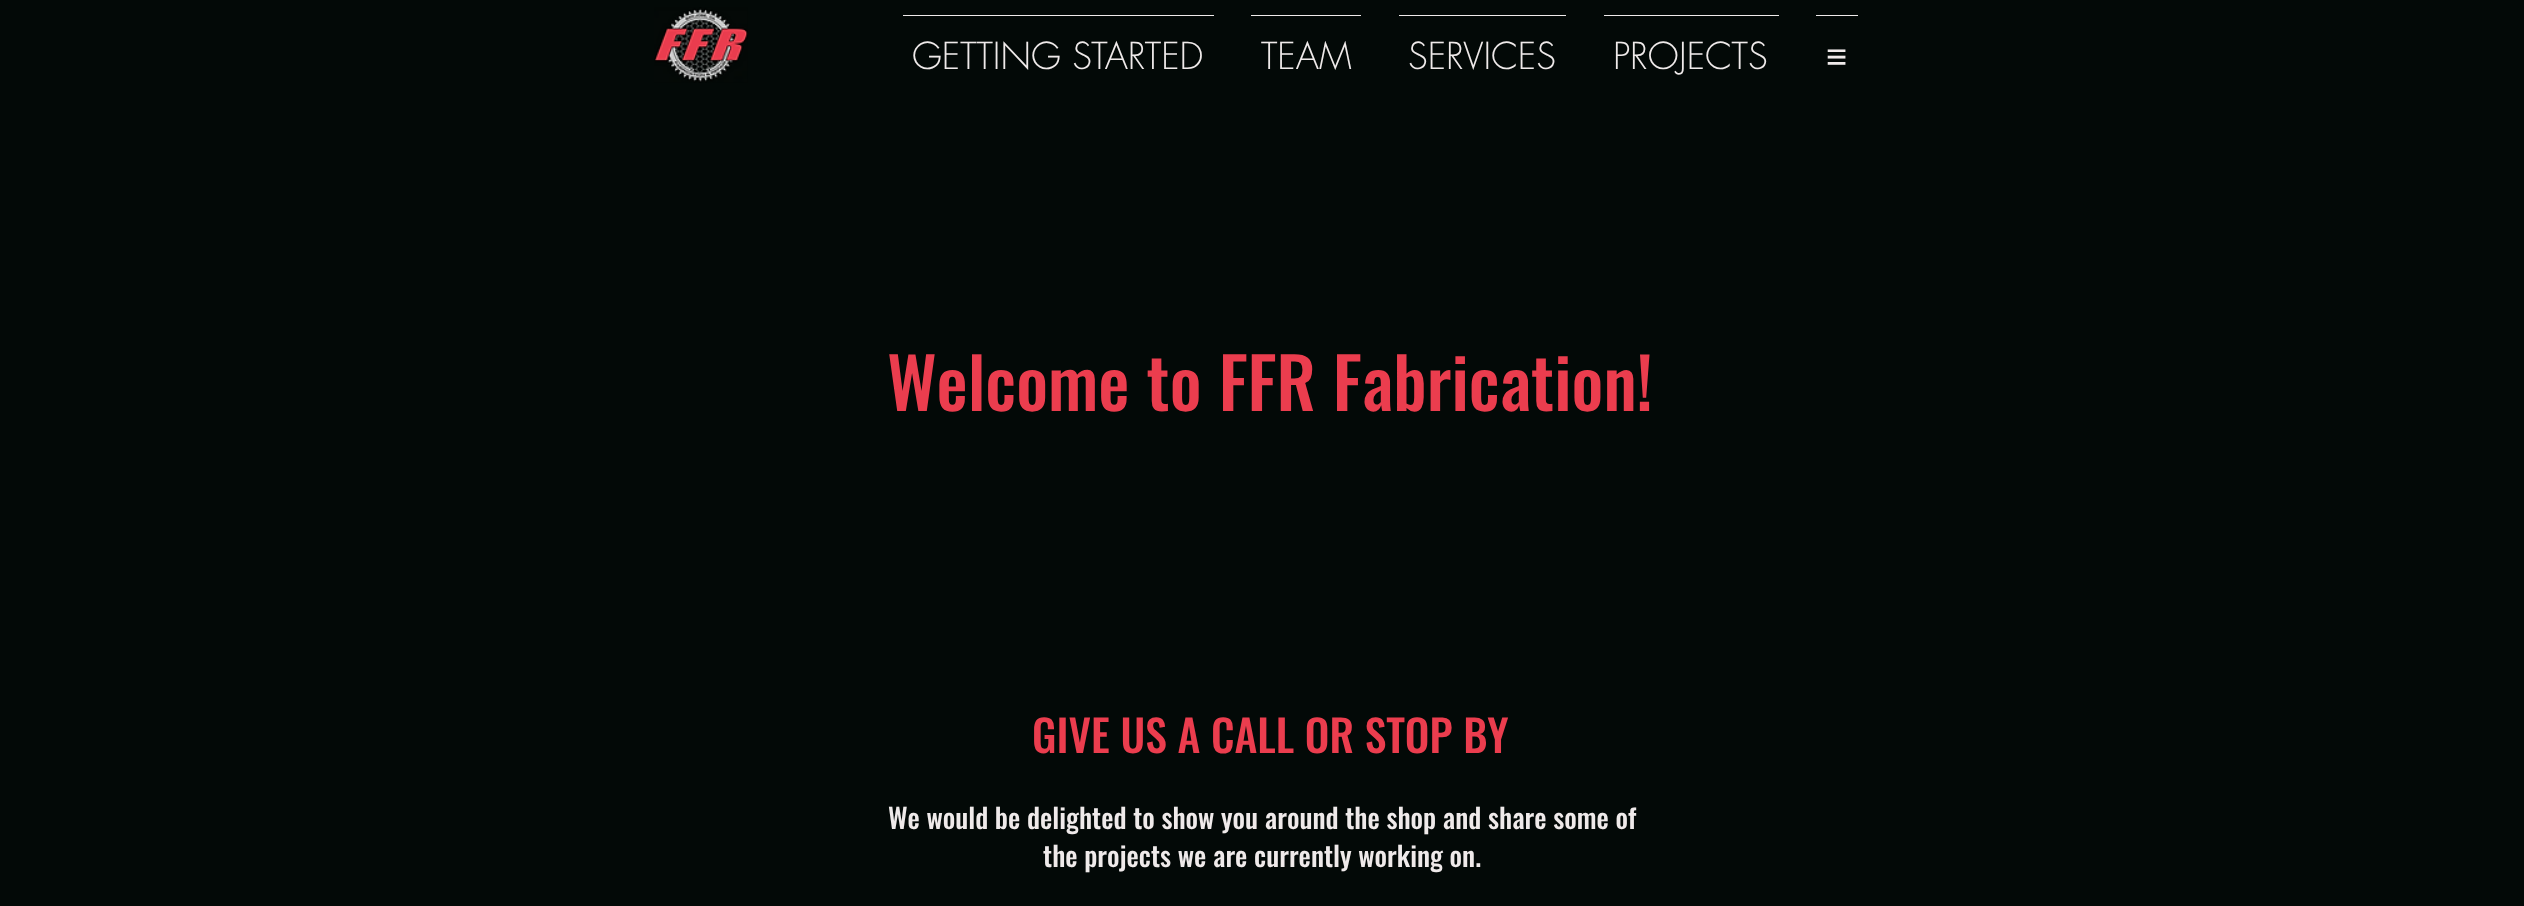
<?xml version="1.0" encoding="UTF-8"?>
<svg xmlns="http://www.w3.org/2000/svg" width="2524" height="906">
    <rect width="100%" height="100%" fill="#030907"/>
    <image x="654" y="7" width="94" height="76" href="img_01.png"/>
    <rect x="903" y="15" width="311" height="1" fill="#EFEAEA"/>
    <text x="912" y="69" font-family="futura" font-size="36.25" font-weight="300" fill="#EFEAEA">GETTING STARTED</text>
    <rect x="1251" y="15" width="110" height="1" fill="#EFEAEA"/>
    <text x="1261" y="69" font-family="futura" font-size="36.25" font-weight="300" fill="#EFEAEA">TEAM</text>
    <rect x="1399" y="15" width="167" height="1" fill="#EFEAEA"/>
    <text x="1408" y="69" font-family="futura" font-size="36.25" font-weight="300" fill="#EFEAEA">SERVICES</text>
    <rect x="1604" y="15" width="175" height="1" fill="#EFEAEA"/>
    <text x="1613" y="69" font-family="futura" font-size="36.25" font-weight="300" fill="#EFEAEA">PROJECTS</text>
    <rect x="1816" y="15" width="42" height="1" fill="#EFEAEA"/>
    <text x="1826" y="69" font-family="Liberation Sans" font-size="36.25" fill="#EFEAEA">≡</text>
    <text x="887" y="411" font-family="Oswald" font-size="70" font-weight="500" fill="#EB3D4E">Welcome to FFR Fabrication!</text>
    <text x="1032" y="753" font-family="Oswald" font-size="43.75" font-weight="500" fill="#EB3D4E">GIVE US A CALL OR STOP BY</text>
    <text x="888" y="829" font-family="Oswald" font-size="27.5" font-weight="500" fill="#EFEAEA">We would be delighted to show you around the shop and share some of</text>
    <text x="1043" y="867" font-family="Oswald" font-size="27.5" font-weight="500" fill="#EFEAEA">the projects we are currently working on.</text>
</svg>
